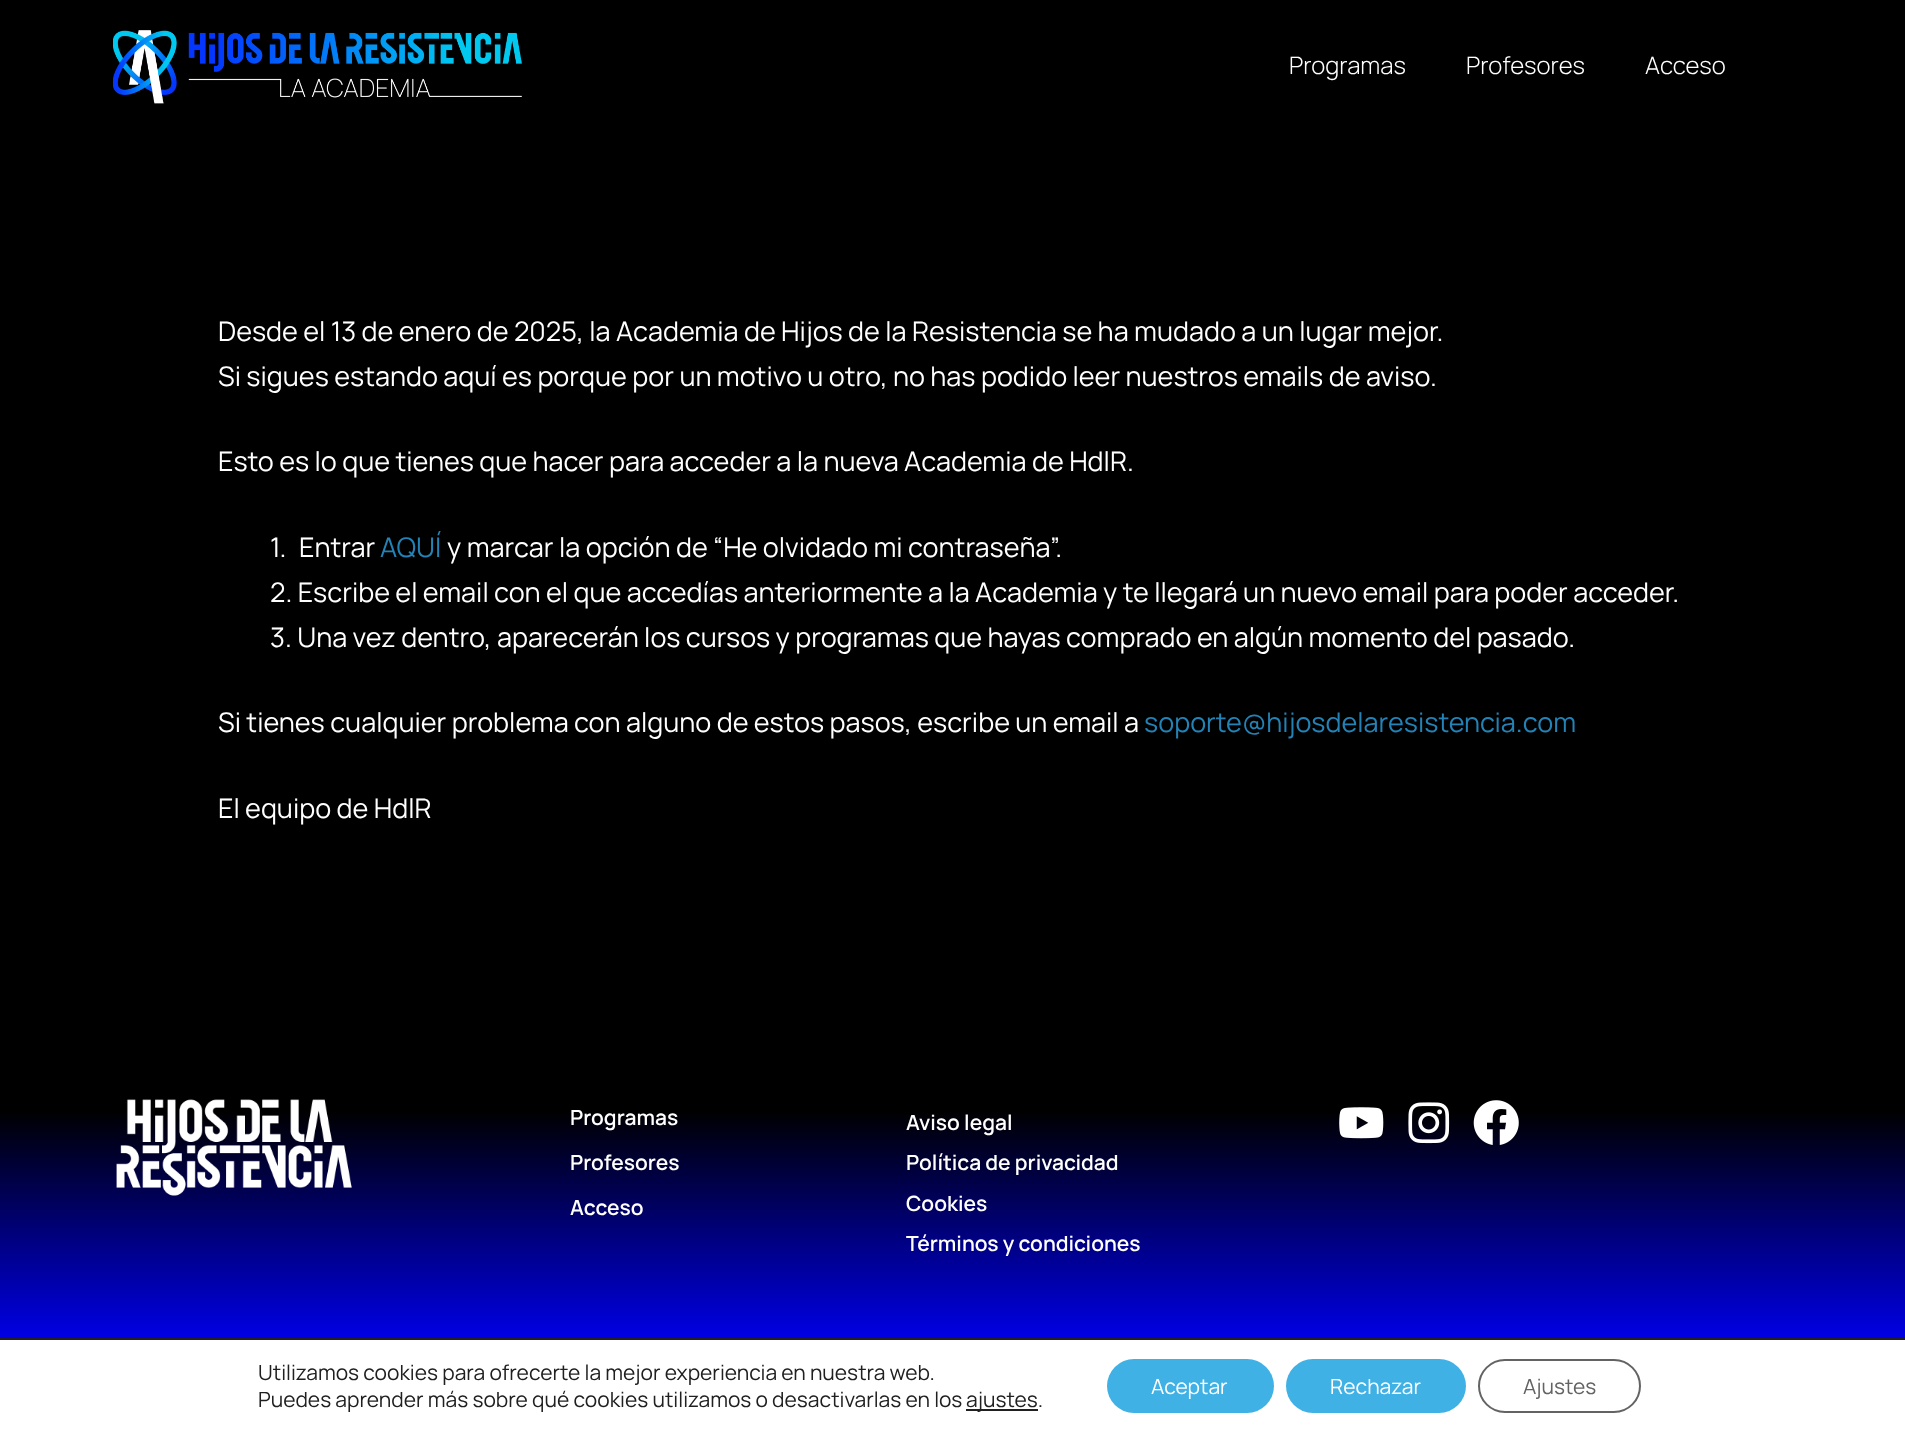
<?xml version="1.0" encoding="UTF-8"?>
<svg xmlns="http://www.w3.org/2000/svg" width="1905" height="1432">
    <defs>
        <linearGradient id="g1" gradientUnits="userSpaceOnUse" x1="953" y1="1065" x2="953" y2="1365"><stop offset="0.15" stop-color="#000000"/><stop offset="1" stop-color="#0000FF"/></linearGradient>
    </defs>
    <rect width="100%" height="100%" fill="#000000"/>
    <image x="113" y="30" width="409" height="74" href="img_01.png"/>
    <text x="1289" y="74" font-family="Manrope" font-size="24" font-weight="300" fill="#FFFFFF">Programas</text>
    <text x="1466" y="74" font-family="Manrope" font-size="24" font-weight="300" fill="#FFFFFF">Profesores</text>
    <text x="1645" y="74" font-family="Manrope" font-size="24" font-weight="300" fill="#FFFFFF">Acceso</text>
    <text font-family="Manrope" font-size="27" fill="#FFFFFF">
        <tspan x="218" y="341">Desde el 13 de enero de 2025, la Academia de Hijos de la Resistencia se ha mudado a un lugar mejor.</tspan>
        <tspan x="218" y="386">Si sigues estando aquí es porque por un motivo u otro, no has podido leer nuestros emails de aviso.</tspan>
    </text>
    <text x="218" y="471" font-family="Manrope" font-size="27" fill="#FFFFFF">Esto es lo que tienes que hacer para acceder a la nueva Academia de HdlR.</text>
    <text x="270" y="557" font-family="Manrope" font-size="27" fill="#FFFFFF">1.</text>
    <text x="299" y="557" font-family="Manrope" font-size="27" fill="#FFFFFF">Entrar</text>
    <text x="380" y="557" font-family="Manrope" font-size="27" fill="#2383B6">AQUÍ</text>
    <text x="447" y="557" font-family="Manrope" font-size="27" fill="#FFFFFF">y marcar la opción de “He olvidado mi contraseña”.</text>
    <text font-family="Manrope" font-size="27" fill="#FFFFFF">
        <tspan x="270" y="602">2. Escribe el email con el que accedías anteriormente a la Academia y te llegará un nuevo email para poder acceder.</tspan>
        <tspan x="270" y="647">3. Una vez dentro, aparecerán los cursos y programas que hayas comprado en algún momento del pasado.</tspan>
    </text>
    <text x="218" y="732" font-family="Manrope" font-size="27" fill="#FFFFFF">Si tienes cualquier problema con alguno de estos pasos, escribe un email a</text>
    <text x="1144" y="732" font-family="Manrope" font-size="27" fill="#2383B6">soporte@hijosdelaresistencia.com</text>
    <text x="218" y="818" font-family="Manrope" font-size="27" fill="#FFFFFF">El equipo de HdlR</text>
    <rect x="0" y="1113" width="1905" height="225" fill="url(#g1)"/>
    <image x="116" y="1099" width="236" height="97" href="img_02.png"/>
    <text x="570" y="1125" font-family="Manrope" font-size="21" font-weight="600" fill="#FFFFFF">Programas</text>
    <text x="570" y="1170" font-family="Manrope" font-size="21" font-weight="600" fill="#FFFFFF">Profesores</text>
    <text x="570" y="1215" font-family="Manrope" font-size="21" font-weight="600" fill="#FFFFFF">Acceso</text>
    <text font-family="Manrope" font-size="21" font-weight="600" fill="#FFFFFF">
        <tspan x="906" y="1130">Aviso legal</tspan>
        <tspan x="906" y="1170">Política de privacidad</tspan>
        <tspan x="906" y="1211">Cookies</tspan>
        <tspan x="906" y="1251">Términos y condiciones</tspan>
    </text>
    <image x="1339" y="1107" width="45" height="32" href="img_03.png"/>
    <image x="1408" y="1102" width="42" height="42" href="img_04.png"/>
    <image x="1473" y="1100" width="46" height="45" href="img_05.png"/>
    <rect x="0" y="1340" width="1905" height="92" fill="#FFFFFF"/>
    <rect x="0" y="1338" width="1905" height="2" fill="#202020"/>
    <text font-family="Manrope" font-size="21" fill="#202020">
        <tspan x="258" y="1380">Utilizamos cookies para ofrecerte la mejor experiencia en nuestra web.</tspan>
        <tspan x="258" y="1407">Puedes aprender más sobre qué cookies utilizamos o desactivarlas en los</tspan>
    </text>
    <rect x="966" y="1409" width="72" height="2" fill="#202020"/>
    <text x="966" y="1407" font-family="Manrope" font-size="21" fill="#202020">ajustes.</text>
    <rect x="1107" y="1359" width="167" height="54" rx="27" fill="#40B1E5"/>
    <text x="1151" y="1394" font-family="Manrope" font-size="21" fill="#FFFFFF">Aceptar</text>
    <rect x="1286" y="1359" width="180" height="54" rx="27" fill="#40B1E5"/>
    <text x="1330" y="1394" font-family="Manrope" font-size="21" fill="#FFFFFF">Rechazar</text>
    <rect x="1479" y="1360" width="161" height="52" rx="26" fill="none" stroke="#636363" stroke-width="2"/>
    <text x="1523" y="1394" font-family="Manrope" font-size="21" fill="#636363">Ajustes</text>
</svg>
